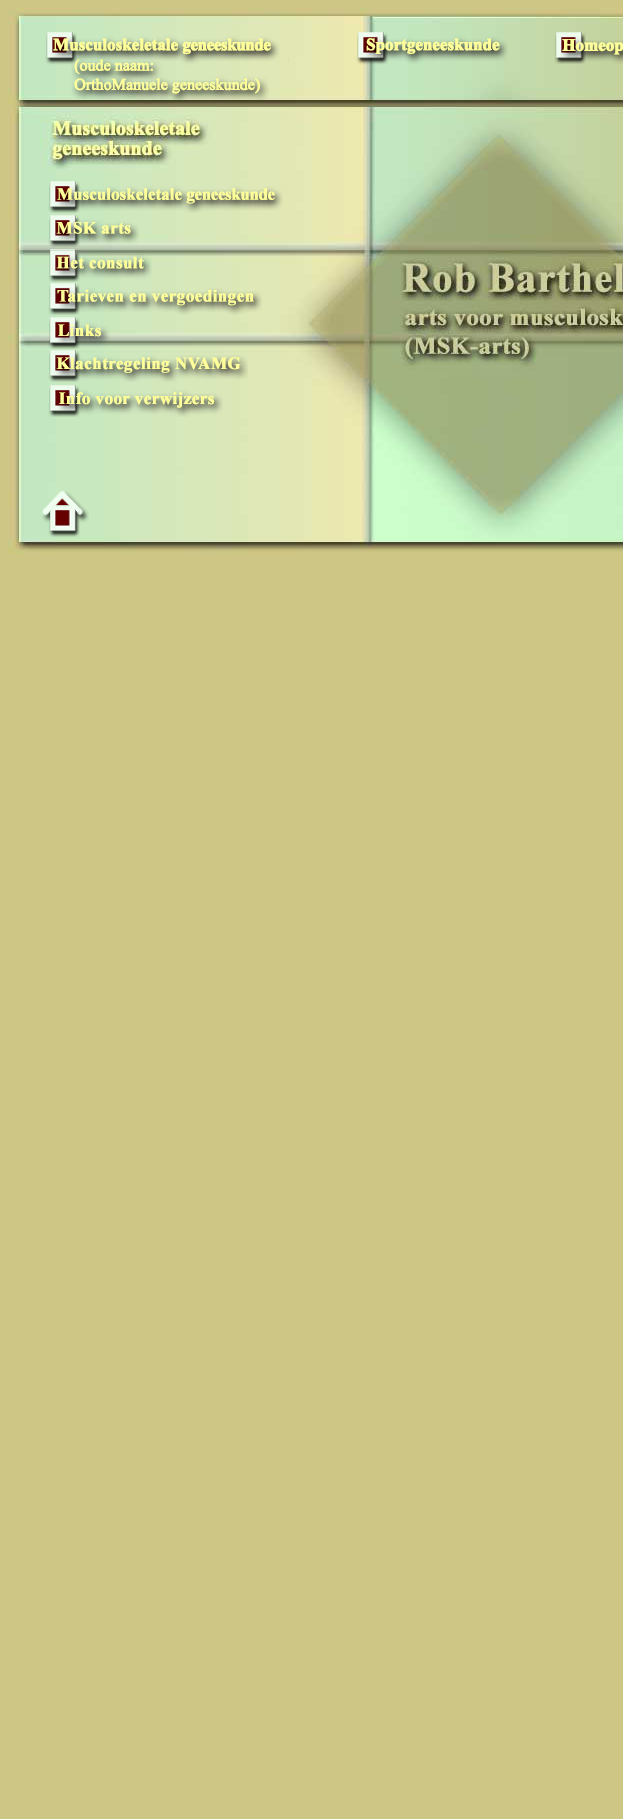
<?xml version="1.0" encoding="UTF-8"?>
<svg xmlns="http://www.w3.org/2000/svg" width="623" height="1819">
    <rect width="100%" height="100%" fill="#CEC684"/>
    <image x="8" y="8" width="615" height="98" href="img_01.png"/>
    <image x="45" y="32" width="244" height="69" href="img_02.png"/>
    <image x="356" y="32" width="152" height="33" href="img_03.png"/>
    <image x="554" y="32" width="69" height="32" href="img_04.png"/>
    <image x="8" y="106" width="615" height="448" href="img_05.png"/>
    <image x="48" y="181" width="235" height="32" href="img_06.png"/>
    <image x="48" y="215" width="91" height="35" href="img_07.png"/>
    <image x="48" y="250" width="104" height="32" href="img_08.png"/>
    <image x="48" y="283" width="214" height="32" href="img_09.png"/>
    <image x="48" y="317" width="62" height="32" href="img_10.png"/>
    <image x="48" y="350" width="200" height="32" href="img_11.png"/>
    <image x="48" y="385" width="175" height="32" href="img_12.png"/>
    <image x="42" y="490" width="47" height="47" href="img_13.png"/>
</svg>
